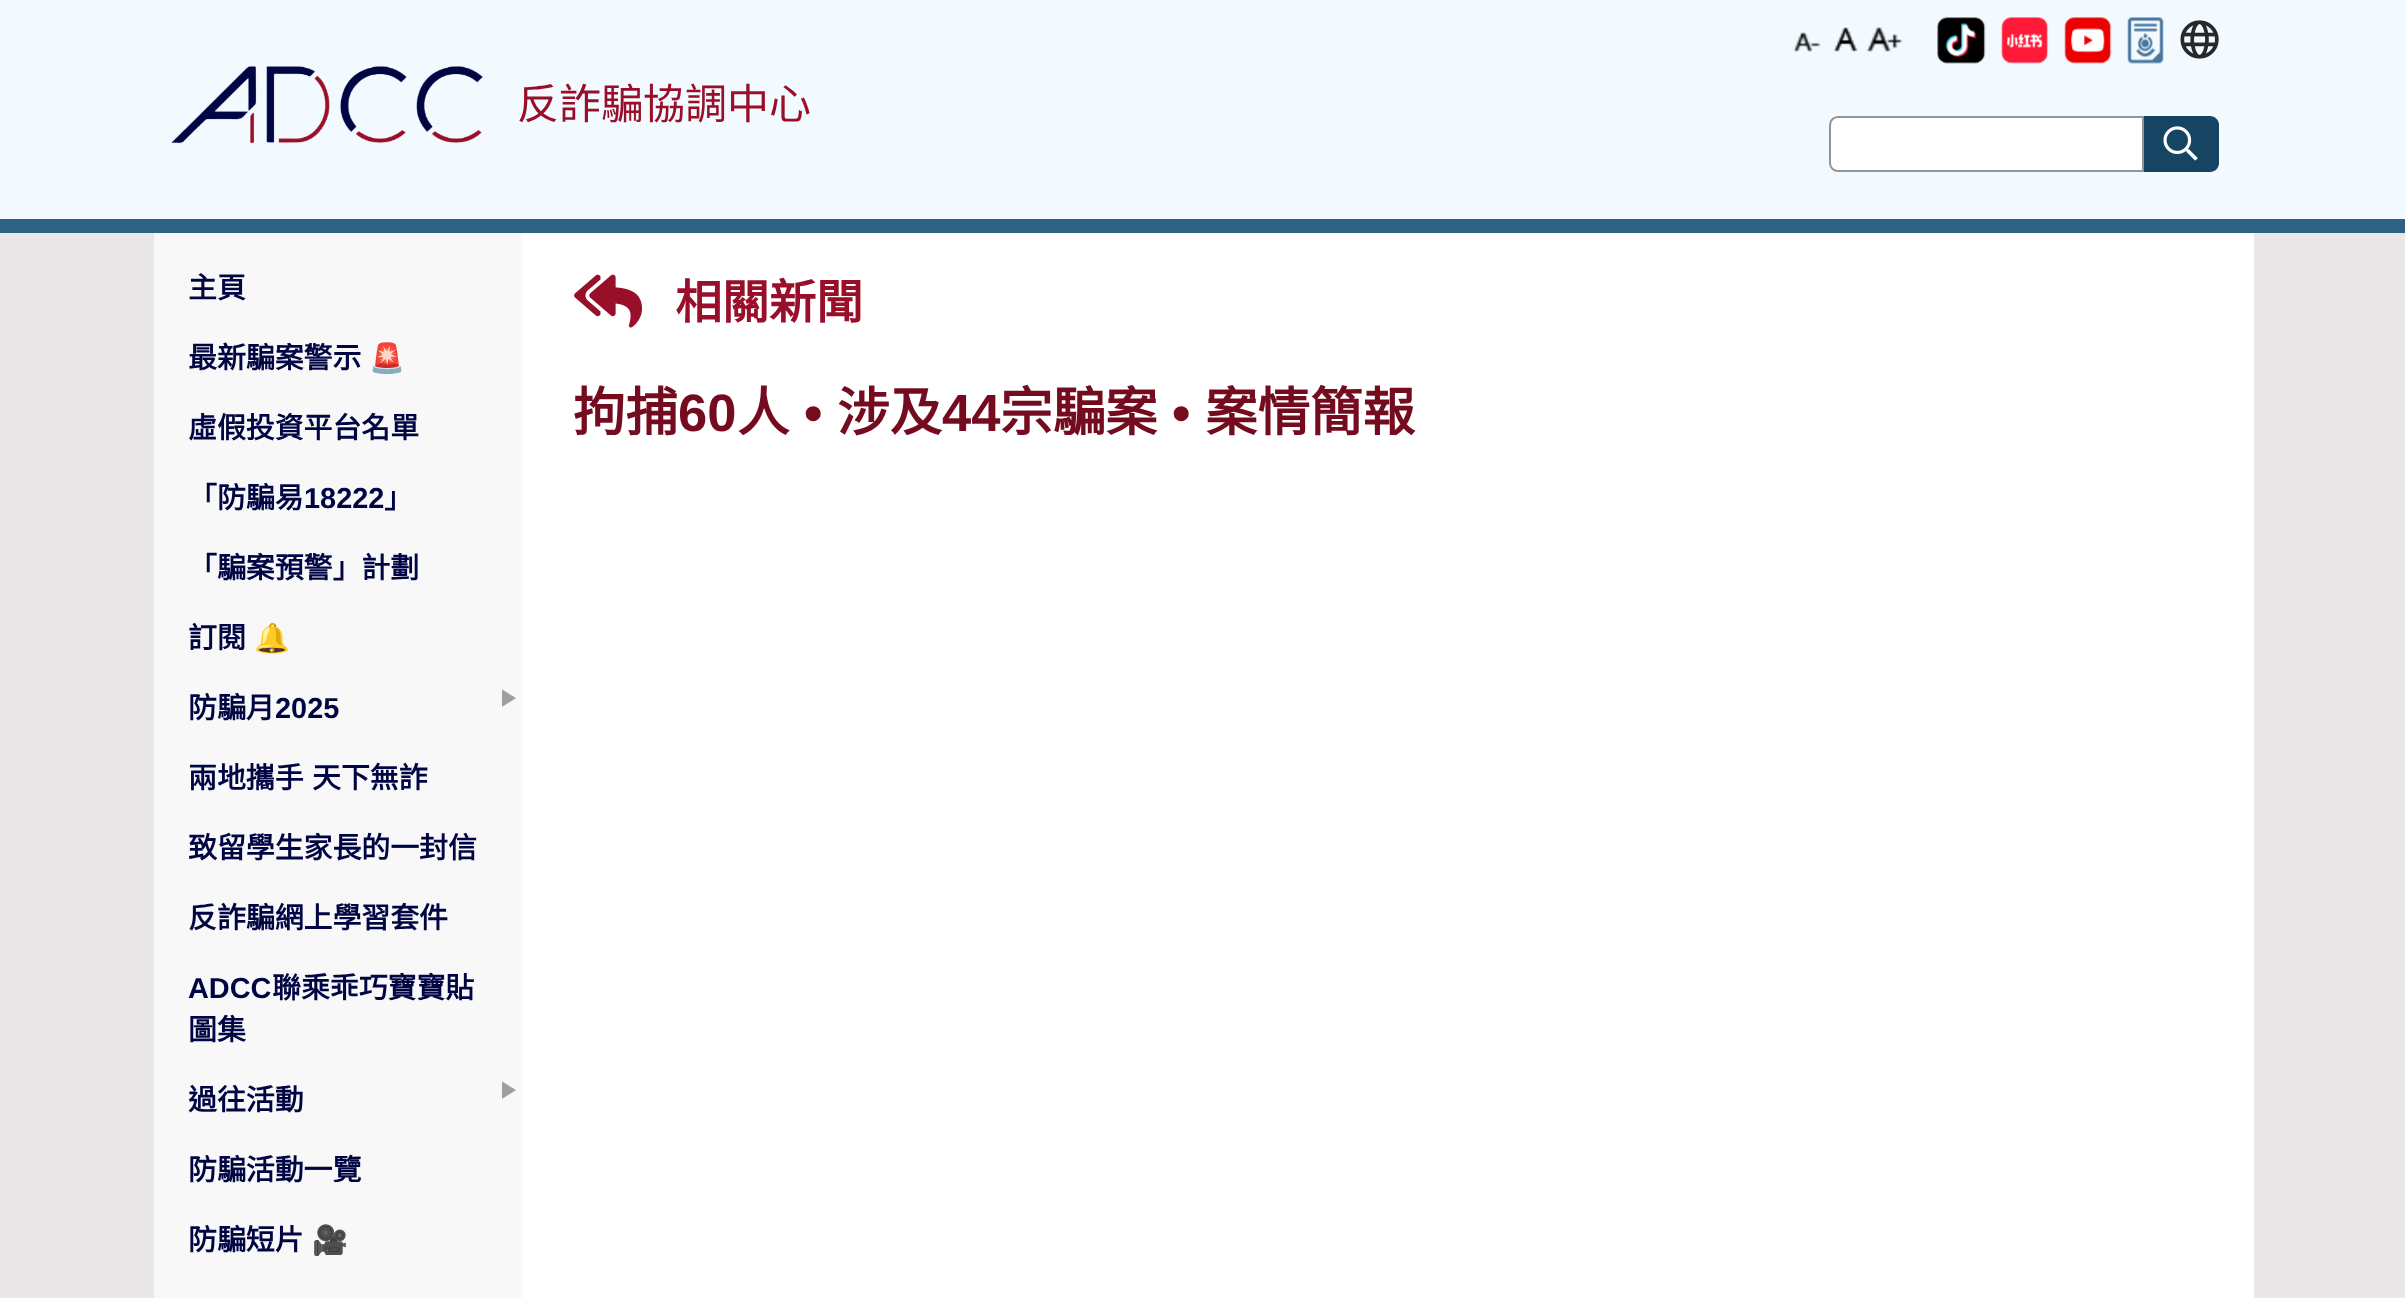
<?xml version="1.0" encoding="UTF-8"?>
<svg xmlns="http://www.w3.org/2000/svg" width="2405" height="1298">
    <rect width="100%" height="100%" fill="#E9E7E7"/>
    <rect x="0" y="0" width="2405" height="219" fill="#F2FAFF"/>
    <rect x="0" y="219" width="2405" height="14" fill="#2D6284"/>
    <image x="1793" y="32" width="28" height="20" href="img_01.png"/>
    <image x="1833" y="27" width="25" height="25" href="img_02.png"/>
    <image x="1867" y="27" width="36" height="25" href="img_03.png"/>
    <image x="1937" y="17" width="49" height="47" href="img_04.png"/>
    <image x="2001" y="17" width="48" height="47" href="img_05.png"/>
    <image x="2064" y="17" width="48" height="47" href="img_06.png"/>
    <image x="2127" y="17" width="37" height="47" href="img_07.png"/>
    <image x="2180" y="20" width="39" height="39" href="img_08.png"/>
    <image x="171" y="66" width="312" height="78" href="img_09.png"/>
    <text x="517" y="119" font-family="Noto Sans CJK HK" font-size="42" fill="#990F29">反詐騙協調中心</text>
    <path d="M 1838 117 H 2143 V 171 H 1838 C 1833.5 171 1830 167.5 1830 163 V 125 C 1830 120.5 1833.5 117 1838 117 Z" fill="#FFFFFF" stroke="#949494" stroke-width="2"/>
    <path d="M 2144 116 H 2210 C 2215 116 2219 120 2219 125 V 163 C 2219 168 2215 172 2210 172 H 2144 Z" fill="#154563"/>
    <image x="2163" y="126" width="35" height="35" href="img_10.png"/>
    <rect x="154" y="233" width="368" height="1065" fill="#F9F8F8"/>
    <text x="188" y="298" font-family="Noto Sans CJK HK" font-size="28.9" font-weight="700" fill="#000644">主頁</text>
    <text x="188" y="368" font-family="Noto Sans CJK HK" font-size="28.9" font-weight="700" fill="#000644">最新騙案警示</text>
    <text x="369" y="368" font-family="Noto Color Emoji" font-size="28.9" font-weight="700" fill="#000644">🚨</text>
    <text x="188" y="438" font-family="Noto Sans CJK HK" font-size="28.9" font-weight="700" fill="#000644">虛假投資平台名單</text>
    <text x="188" y="508" font-family="Noto Sans CJK HK" font-size="28.9" font-weight="700" fill="#000644">「防騙易</text>
    <text x="304" y="508" font-family="Liberation Sans" font-size="28.9" font-weight="700" fill="#000644">18222</text>
    <text x="384" y="508" font-family="Noto Sans CJK HK" font-size="28.9" font-weight="700" fill="#000644">」</text>
    <text x="188" y="578" font-family="Noto Sans CJK HK" font-size="28.9" font-weight="700" fill="#000644">「騙案預警」計劃</text>
    <text x="188" y="648" font-family="Noto Sans CJK HK" font-size="28.9" font-weight="700" fill="#000644">訂閱</text>
    <text x="254" y="648" font-family="Noto Color Emoji" font-size="28.9" font-weight="700" fill="#000644">🔔</text>
    <text x="188" y="718" font-family="Noto Sans CJK HK" font-size="28.9" font-weight="700" fill="#000644">防騙月</text>
    <text x="275" y="718" font-family="Liberation Sans" font-size="28.9" font-weight="700" fill="#000644">2025</text>
    <path d="M 502 707 V 689.5 L 516 698 Z" fill="#9F9F9F"/>
    <text x="188" y="788" word-spacing="2" font-family="Noto Sans CJK HK" font-size="28.9" font-weight="700" fill="#000644">兩地攜手 天下無詐</text>
    <text x="188" y="858" font-family="Noto Sans CJK HK" font-size="28.9" font-weight="700" fill="#000644">致留學生家長的一封信</text>
    <text x="188" y="928" font-family="Noto Sans CJK HK" font-size="28.9" font-weight="700" fill="#000644">反詐騙網上學習套件</text>
    <text x="188" y="998" font-family="Liberation Sans" font-size="28.9" font-weight="700" fill="#000644">ADCC</text>
    <text x="272" y="998" font-family="Noto Sans CJK HK" font-size="28.9" font-weight="700" fill="#000644">聯乘乖巧寶寶貼</text>
    <text x="188" y="1040" font-family="Noto Sans CJK HK" font-size="28.9" font-weight="700" fill="#000644">圖集</text>
    <text x="188" y="1110" font-family="Noto Sans CJK HK" font-size="28.9" font-weight="700" fill="#000644">過往活動</text>
    <path d="M 502 1099 V 1081.5 L 516 1090 Z" fill="#9F9F9F"/>
    <text x="188" y="1180" font-family="Noto Sans CJK HK" font-size="28.9" font-weight="700" fill="#000644">防騙活動一覽</text>
    <text x="188" y="1250" font-family="Noto Sans CJK HK" font-size="28.9" font-weight="700" fill="#000644">防騙短片</text>
    <text x="312" y="1250" font-family="Noto Color Emoji" font-size="28.9" font-weight="700" fill="#000644">🎥</text>
    <rect x="522" y="233" width="1732" height="1065" fill="#FFFFFF"/>
    <image x="574" y="274" width="68" height="54" href="img_11.png"/>
    <text x="675" y="319" font-family="Noto Sans CJK HK" font-size="47" font-weight="700" fill="#990F29">相關新聞</text>
    <text x="573" y="431" font-family="Noto Sans CJK HK" font-size="52.5" font-weight="700" fill="#740B1F">拘捕</text>
    <text x="678" y="431" font-family="Liberation Sans" font-size="52.5" font-weight="700" fill="#740B1F">60</text>
    <text x="737" y="431" font-family="Noto Sans CJK HK" font-size="52.5" font-weight="700" fill="#740B1F">人</text>
    <text x="804" y="431" font-family="Liberation Sans" font-size="52.5" font-weight="700" fill="#740B1F">•</text>
    <text x="837" y="431" font-family="Noto Sans CJK HK" font-size="52.5" font-weight="700" fill="#740B1F">涉及</text>
    <text x="942" y="431" font-family="Liberation Sans" font-size="52.5" font-weight="700" fill="#740B1F">44</text>
    <text x="1000" y="431" font-family="Noto Sans CJK HK" font-size="52.5" font-weight="700" fill="#740B1F">宗騙案</text>
    <text x="1172" y="431" font-family="Liberation Sans" font-size="52.5" font-weight="700" fill="#740B1F">•</text>
    <text x="1205" y="431" font-family="Noto Sans CJK HK" font-size="52.5" font-weight="700" fill="#740B1F">案情簡報</text>
</svg>
